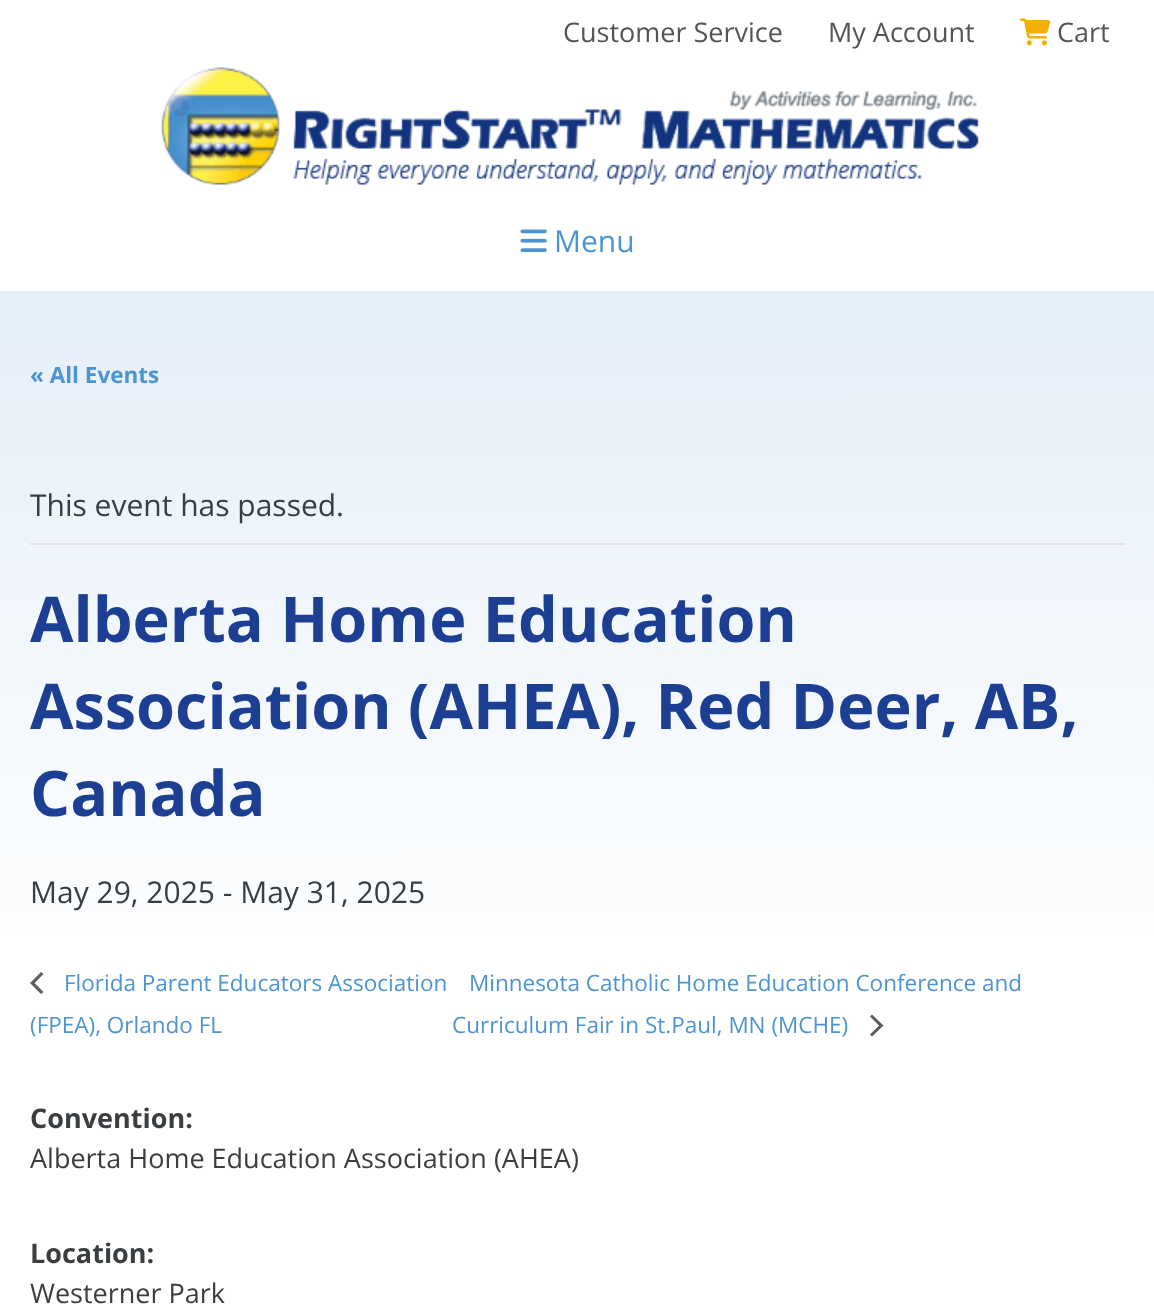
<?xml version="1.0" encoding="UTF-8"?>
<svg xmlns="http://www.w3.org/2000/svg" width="1154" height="1304">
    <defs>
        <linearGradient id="g1" gradientUnits="userSpaceOnUse" x1="577" y1="291" x2="578" y2="1002"><stop offset="0" stop-color="#E5EFF8"/><stop offset="1" stop-color="#FFFFFF"/></linearGradient>
    </defs>
    <rect width="100%" height="100%" fill="#FFFFFF"/>
    <text x="563" y="42" font-family="Open Sans" font-size="27" fill="#555555">Customer Service</text>
    <text x="828" y="42" font-family="Open Sans" font-size="27" fill="#555555">My Account</text>
    <image x="1020" y="18" width="31" height="28" href="img_01.png"/>
    <text x="1057" y="42" font-family="Open Sans" font-size="27" fill="#555555">Cart</text>
    <image x="160" y="67" width="819" height="118" href="img_02.png"/>
    <image x="520" y="229" width="27" height="23" href="img_03.png"/>
    <text x="554" y="252" font-family="Open Sans" font-size="30" fill="#4D94D0">Menu</text>
    <rect x="0" y="291" width="1154" height="643" fill="url(#g1)"/>
    <text x="30" y="383" font-family="Open Sans" font-size="22.5" font-weight="700" fill="#4D94D0">« All Events</text>
    <rect x="30" y="543" width="1095" height="2" fill="#E4E4E4"/>
    <text x="30" y="516" font-family="Open Sans" font-size="30" fill="#3B3E41">This event has passed.</text>
    <text font-family="Open Sans" font-size="63" font-weight="700" fill="#1C3F94">
        <tspan x="30" y="642">Alberta Home Education</tspan>
        <tspan x="30" y="729">Association (AHEA), Red Deer, AB,</tspan>
        <tspan x="30" y="816">Canada</tspan>
    </text>
    <text x="30" y="903" font-family="Open Sans" font-size="30" fill="#3B3E41">May 29, 2025 - May 31, 2025</text>
    <path d="M 43.5 992 L 41 994 L 30 983 L 41 972 L 43.5 974 L 34.5 983 Z" fill="#5D5D5D"/>
    <text x="64" y="991" font-family="Open Sans" font-size="22.5" fill="#4D94D0">Florida Parent Educators Association</text>
    <text x="30" y="1033" font-family="Open Sans" font-size="22.5" fill="#4D94D0">(FPEA), Orlando FL</text>
    <text x="469" y="991" font-family="Open Sans" font-size="22.5" fill="#4D94D0">Minnesota Catholic Home Education Conference and</text>
    <text x="452" y="1033" font-family="Open Sans" font-size="22.5" fill="#4D94D0">Curriculum Fair in St.Paul, MN (MCHE)</text>
    <path d="M 870 1016.5 L 872 1014.5 L 883.5 1025.5 L 872 1036.5 L 870 1034.5 L 879 1025.5 Z" fill="#5D5D5D"/>
    <text x="30" y="1128" font-family="Open Sans" font-size="27" font-weight="700" fill="#3B3E41">Convention:</text>
    <text x="30" y="1168" font-family="Open Sans" font-size="27" fill="#3B3E41">Alberta Home Education Association (AHEA)</text>
    <text x="30" y="1263" font-family="Open Sans" font-size="27" font-weight="700" fill="#3B3E41">Location:</text>
    <text x="30" y="1303" font-family="Open Sans" font-size="27" fill="#3B3E41">Westerner Park</text>
</svg>
